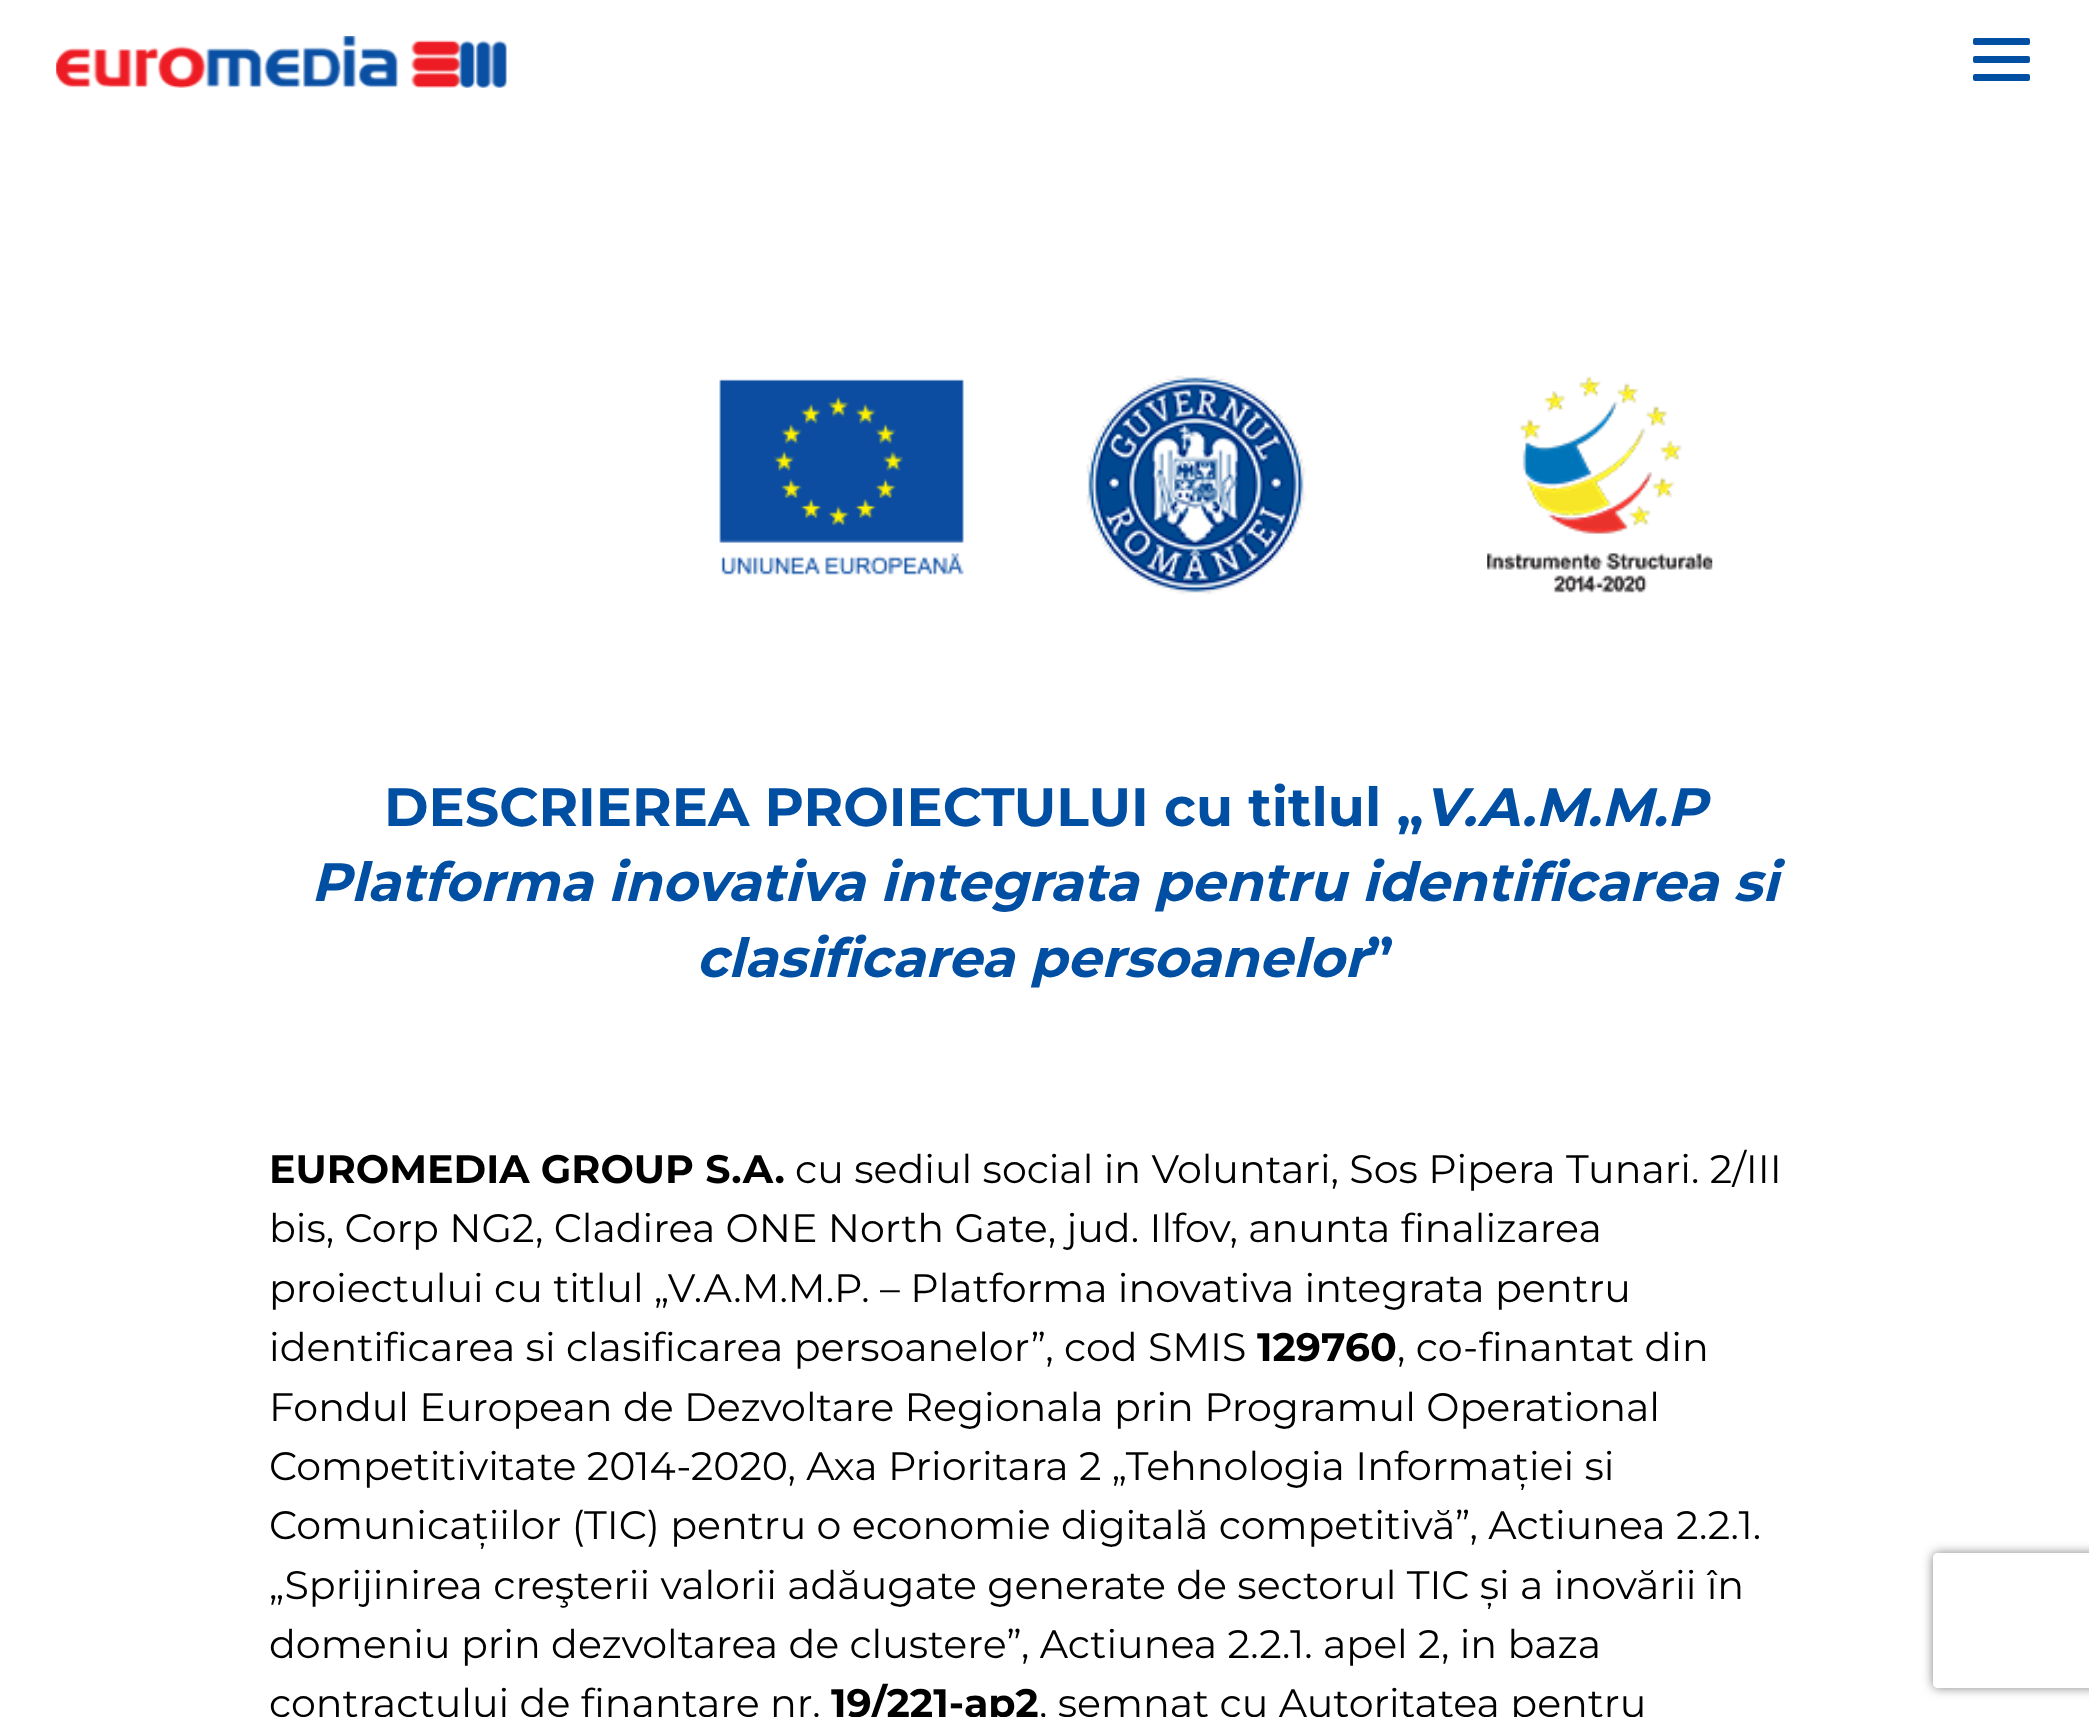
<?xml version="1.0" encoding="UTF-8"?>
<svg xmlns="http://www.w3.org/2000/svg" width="2089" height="1717">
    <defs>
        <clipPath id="clip1"><path d="M 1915 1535 H 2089 V 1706 H 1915 Z M 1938 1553 H 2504 C 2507 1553 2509 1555 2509 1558 V 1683 C 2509 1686 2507 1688 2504 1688 H 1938 C 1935 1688 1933 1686 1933 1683 V 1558 C 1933 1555 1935 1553 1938 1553 Z" clip-rule="evenodd"/></clipPath>
        <filter id="blur1" x="-50%" y="-200%" width="200%" height="500%"><feGaussianBlur stdDeviation="5.5"/></filter>
    </defs>
    <rect width="100%" height="100%" fill="#FFFFFF"/>
    <image x="56" y="36" width="451" height="52" href="img_01.png"/>
    <rect x="1973" y="56" width="57" height="7" rx="2" fill="#004FA3"/>
    <rect x="1973" y="38" width="57" height="7" rx="2" fill="#004FA3"/>
    <rect x="1973" y="74" width="57" height="7" rx="2" fill="#004FA3"/>
    <image x="719" y="379" width="245" height="196" href="img_02.png"/>
    <image x="1086" y="375" width="220" height="220" href="img_03.png"/>
    <image x="1487" y="375" width="226" height="218" href="img_04.png"/>
    <text x="384" y="826" font-family="Montserrat" font-size="54" font-weight="700" fill="#004FA3">DESCRIEREA PROIECTULUI cu titlul „</text>
    <text x="1424" y="826" font-family="Montserrat" font-size="54" font-weight="700" font-style="italic" fill="#004FA3">V.A.M.M.P</text>
    <text x="311" y="901" font-family="Montserrat" font-size="54" font-weight="700" font-style="italic" fill="#004FA3">Platforma inovativa integrata pentru identificarea si</text>
    <text x="696" y="977" font-family="Montserrat" font-size="54" font-weight="700" font-style="italic" fill="#004FA3">clasificarea persoanelor</text>
    <text x="1367" y="977" font-family="Montserrat" font-size="54" font-weight="700" fill="#004FA3">”</text>
    <text x="269" y="1183" font-family="Montserrat" font-size="39.6" font-weight="700" fill="#000000">EUROMEDIA GROUP S.A.</text>
    <text x="795" y="1183" font-family="Montserrat" font-size="39.6" fill="#000000">cu sediul social in Voluntari, Sos Pipera Tunari. 2/III</text>
    <text font-family="Montserrat" font-size="39.6" fill="#000000">
        <tspan x="269" y="1242">bis, Corp NG2, Cladirea ONE North Gate, jud. Ilfov, anunta finalizarea</tspan>
        <tspan x="269" y="1302">proiectului cu titlul „V.A.M.M.P. – Platforma inovativa integrata pentru</tspan>
        <tspan x="269" y="1361">identificarea si clasificarea persoanelor”, cod SMIS</tspan>
    </text>
    <text x="1257" y="1361" font-family="Montserrat" font-size="39.6" font-weight="700" fill="#000000">129760</text>
    <text x="1397" y="1361" font-family="Montserrat" font-size="39.6" fill="#000000">, co-finantat din</text>
    <text font-family="Montserrat" font-size="39.6" fill="#000000">
        <tspan x="269" y="1421">Fondul European de Dezvoltare Regionala prin Programul Operational</tspan>
        <tspan x="269" y="1480">Competitivitate 2014-2020, Axa Prioritara 2 „Tehnologia Informației si</tspan>
        <tspan x="269" y="1539">Comunicațiilor (TIC) pentru o economie digitală competitivă”, Actiunea 2.2.1.</tspan>
        <tspan x="269" y="1599">„Sprijinirea creşterii valorii adăugate generate de sectorul TIC și a inovării în</tspan>
        <tspan x="269" y="1658">domeniu prin dezvoltarea de clustere”, Actiunea 2.2.1. apel 2, in baza</tspan>
        <tspan x="269" y="1717">contractului de finantare nr.</tspan>
    </text>
    <text x="831" y="1717" font-family="Montserrat" font-size="39.6" font-weight="700" fill="#000000">19/221-ap2</text>
    <text x="1039" y="1717" font-family="Montserrat" font-size="39.6" fill="#000000">, semnat cu Autoritatea pentru</text>
    <g clip-path="url(#clip1)">
        <rect x="1933" y="1553" width="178" height="135" rx="5" fill="#808080" filter="url(#blur1)"/>
    </g>
</svg>
